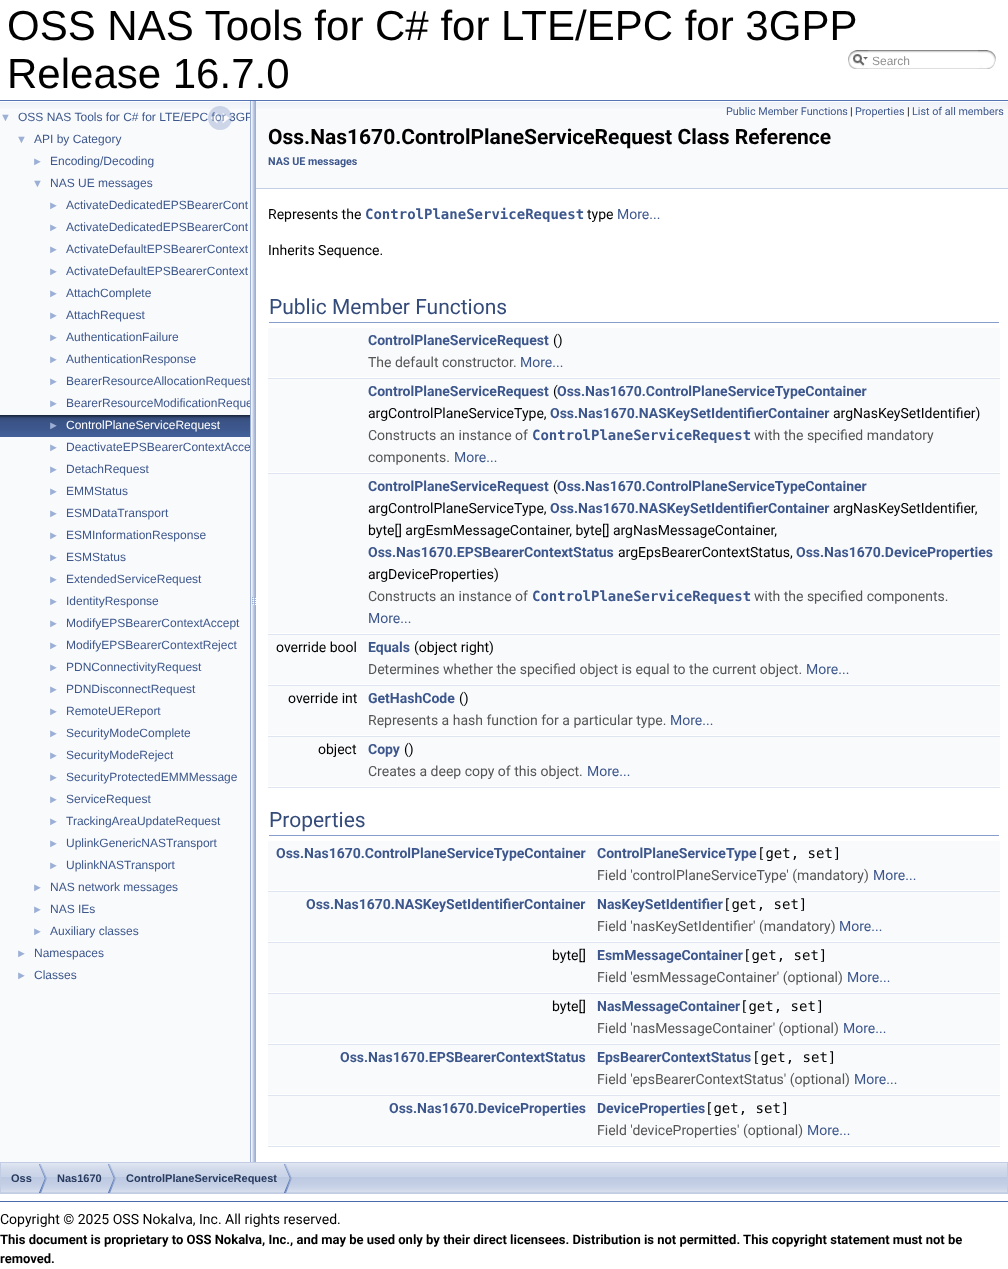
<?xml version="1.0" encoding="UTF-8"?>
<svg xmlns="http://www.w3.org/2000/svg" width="1008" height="1269">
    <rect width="100%" height="100%" fill="#FFFFFF"/>
    <rect x="0" y="100" width="1008" height="1" fill="#5373B4"/>
    <text font-family="Liberation Sans" font-size="42" fill="#000000">
        <tspan x="7" y="40">OSS NAS Tools for C# for LTE/EPC for 3GPP</tspan>
        <tspan x="7" y="88">Release 16.7.0</tspan>
    </text>
    <image x="848" y="50" width="20" height="19" href="img_01.png"/>
    <image x="853" y="54" width="15" height="12" href="img_02.png"/>
    <image x="868" y="50" width="110" height="19" href="img_03.png"/>
    <text x="872" y="65" font-family="Liberation Sans" font-size="12" fill="#909090">Search</text>
    <image x="978" y="50" width="18" height="19" href="img_04.png"/>
    <rect x="0" y="109" width="250" height="1053" fill="#F9FAFC"/>
    <image x="0" y="101" width="250" height="8" href="img_05.png"/>
    <text x="18" y="121" font-family="Liberation Sans" font-size="12" fill="#3D578C">OSS NAS Tools for C# for LTE/EPC for 3GP</text>
    <image x="208" y="106" width="24" height="24" href="img_06.png"/>
    <text x="0" y="121" font-family="Liberation Sans" font-size="11" fill="#9CAFD4">▼</text>
    <text x="16" y="143" font-family="Liberation Sans" font-size="11" fill="#9CAFD4">▼</text>
    <text x="34" y="143" font-family="Liberation Sans" font-size="12" fill="#3D578C">API by Category</text>
    <text x="32" y="165" font-family="Liberation Sans" font-size="11" fill="#9CAFD4">►</text>
    <text x="50" y="165" font-family="Liberation Sans" font-size="12" fill="#3D578C">Encoding/Decoding</text>
    <text x="32" y="187" font-family="Liberation Sans" font-size="11" fill="#9CAFD4">▼</text>
    <text x="50" y="187" font-family="Liberation Sans" font-size="12" fill="#3D578C">NAS UE messages</text>
    <text x="48" y="209" font-family="Liberation Sans" font-size="11" fill="#9CAFD4">►</text>
    <text x="66" y="209" font-family="Liberation Sans" font-size="12" fill="#3D578C">ActivateDedicatedEPSBearerCont</text>
    <text x="48" y="231" font-family="Liberation Sans" font-size="11" fill="#9CAFD4">►</text>
    <text x="66" y="231" font-family="Liberation Sans" font-size="12" fill="#3D578C">ActivateDedicatedEPSBearerCont</text>
    <text x="48" y="253" font-family="Liberation Sans" font-size="11" fill="#9CAFD4">►</text>
    <text x="66" y="253" font-family="Liberation Sans" font-size="12" fill="#3D578C">ActivateDefaultEPSBearerContext</text>
    <text x="48" y="275" font-family="Liberation Sans" font-size="11" fill="#9CAFD4">►</text>
    <text x="66" y="275" font-family="Liberation Sans" font-size="12" fill="#3D578C">ActivateDefaultEPSBearerContext</text>
    <text x="48" y="297" font-family="Liberation Sans" font-size="11" fill="#9CAFD4">►</text>
    <text x="66" y="297" font-family="Liberation Sans" font-size="12" fill="#3D578C">AttachComplete</text>
    <text x="48" y="319" font-family="Liberation Sans" font-size="11" fill="#9CAFD4">►</text>
    <text x="66" y="319" font-family="Liberation Sans" font-size="12" fill="#3D578C">AttachRequest</text>
    <text x="48" y="341" font-family="Liberation Sans" font-size="11" fill="#9CAFD4">►</text>
    <text x="66" y="341" font-family="Liberation Sans" font-size="12" fill="#3D578C">AuthenticationFailure</text>
    <text x="48" y="363" font-family="Liberation Sans" font-size="11" fill="#9CAFD4">►</text>
    <text x="66" y="363" font-family="Liberation Sans" font-size="12" fill="#3D578C">AuthenticationResponse</text>
    <text x="48" y="385" font-family="Liberation Sans" font-size="11" fill="#9CAFD4">►</text>
    <text x="66" y="385" font-family="Liberation Sans" font-size="12" fill="#3D578C">BearerResourceAllocationRequest</text>
    <text x="48" y="407" font-family="Liberation Sans" font-size="11" fill="#9CAFD4">►</text>
    <text x="66" y="407" font-family="Liberation Sans" font-size="12" fill="#3D578C">BearerResourceModificationReque</text>
    <image x="0" y="415" width="250" height="22" href="img_07.png"/>
    <text x="48" y="429" font-family="Liberation Sans" font-size="11" fill="#9CAFD4">►</text>
    <text x="66" y="429" font-family="Liberation Sans" font-size="12" fill="#FFFFFF">ControlPlaneServiceRequest</text>
    <text x="48" y="451" font-family="Liberation Sans" font-size="11" fill="#9CAFD4">►</text>
    <text x="66" y="451" font-family="Liberation Sans" font-size="12" fill="#3D578C">DeactivateEPSBearerContextAcce</text>
    <text x="48" y="473" font-family="Liberation Sans" font-size="11" fill="#9CAFD4">►</text>
    <text x="66" y="473" font-family="Liberation Sans" font-size="12" fill="#3D578C">DetachRequest</text>
    <text x="48" y="495" font-family="Liberation Sans" font-size="11" fill="#9CAFD4">►</text>
    <text x="66" y="495" font-family="Liberation Sans" font-size="12" fill="#3D578C">EMMStatus</text>
    <text x="48" y="517" font-family="Liberation Sans" font-size="11" fill="#9CAFD4">►</text>
    <text x="66" y="517" font-family="Liberation Sans" font-size="12" fill="#3D578C">ESMDataTransport</text>
    <text x="48" y="539" font-family="Liberation Sans" font-size="11" fill="#9CAFD4">►</text>
    <text x="66" y="539" font-family="Liberation Sans" font-size="12" fill="#3D578C">ESMInformationResponse</text>
    <text x="48" y="561" font-family="Liberation Sans" font-size="11" fill="#9CAFD4">►</text>
    <text x="66" y="561" font-family="Liberation Sans" font-size="12" fill="#3D578C">ESMStatus</text>
    <text x="48" y="583" font-family="Liberation Sans" font-size="11" fill="#9CAFD4">►</text>
    <text x="66" y="583" font-family="Liberation Sans" font-size="12" fill="#3D578C">ExtendedServiceRequest</text>
    <text x="48" y="605" font-family="Liberation Sans" font-size="11" fill="#9CAFD4">►</text>
    <text x="66" y="605" font-family="Liberation Sans" font-size="12" fill="#3D578C">IdentityResponse</text>
    <text x="48" y="627" font-family="Liberation Sans" font-size="11" fill="#9CAFD4">►</text>
    <text x="66" y="627" font-family="Liberation Sans" font-size="12" fill="#3D578C">ModifyEPSBearerContextAccept</text>
    <text x="48" y="649" font-family="Liberation Sans" font-size="11" fill="#9CAFD4">►</text>
    <text x="66" y="649" font-family="Liberation Sans" font-size="12" fill="#3D578C">ModifyEPSBearerContextReject</text>
    <text x="48" y="671" font-family="Liberation Sans" font-size="11" fill="#9CAFD4">►</text>
    <text x="66" y="671" font-family="Liberation Sans" font-size="12" fill="#3D578C">PDNConnectivityRequest</text>
    <text x="48" y="693" font-family="Liberation Sans" font-size="11" fill="#9CAFD4">►</text>
    <text x="66" y="693" font-family="Liberation Sans" font-size="12" fill="#3D578C">PDNDisconnectRequest</text>
    <text x="48" y="715" font-family="Liberation Sans" font-size="11" fill="#9CAFD4">►</text>
    <text x="66" y="715" font-family="Liberation Sans" font-size="12" fill="#3D578C">RemoteUEReport</text>
    <text x="48" y="737" font-family="Liberation Sans" font-size="11" fill="#9CAFD4">►</text>
    <text x="66" y="737" font-family="Liberation Sans" font-size="12" fill="#3D578C">SecurityModeComplete</text>
    <text x="48" y="759" font-family="Liberation Sans" font-size="11" fill="#9CAFD4">►</text>
    <text x="66" y="759" font-family="Liberation Sans" font-size="12" fill="#3D578C">SecurityModeReject</text>
    <text x="48" y="781" font-family="Liberation Sans" font-size="11" fill="#9CAFD4">►</text>
    <text x="66" y="781" font-family="Liberation Sans" font-size="12" fill="#3D578C">SecurityProtectedEMMMessage</text>
    <text x="48" y="803" font-family="Liberation Sans" font-size="11" fill="#9CAFD4">►</text>
    <text x="66" y="803" font-family="Liberation Sans" font-size="12" fill="#3D578C">ServiceRequest</text>
    <text x="48" y="825" font-family="Liberation Sans" font-size="11" fill="#9CAFD4">►</text>
    <text x="66" y="825" font-family="Liberation Sans" font-size="12" fill="#3D578C">TrackingAreaUpdateRequest</text>
    <text x="48" y="847" font-family="Liberation Sans" font-size="11" fill="#9CAFD4">►</text>
    <text x="66" y="847" font-family="Liberation Sans" font-size="12" fill="#3D578C">UplinkGenericNASTransport</text>
    <text x="48" y="869" font-family="Liberation Sans" font-size="11" fill="#9CAFD4">►</text>
    <text x="66" y="869" font-family="Liberation Sans" font-size="12" fill="#3D578C">UplinkNASTransport</text>
    <text x="32" y="891" font-family="Liberation Sans" font-size="11" fill="#9CAFD4">►</text>
    <text x="50" y="891" font-family="Liberation Sans" font-size="12" fill="#3D578C">NAS network messages</text>
    <text x="32" y="913" font-family="Liberation Sans" font-size="11" fill="#9CAFD4">►</text>
    <text x="50" y="913" font-family="Liberation Sans" font-size="12" fill="#3D578C">NAS IEs</text>
    <text x="32" y="935" font-family="Liberation Sans" font-size="11" fill="#9CAFD4">►</text>
    <text x="50" y="935" font-family="Liberation Sans" font-size="12" fill="#3D578C">Auxiliary classes</text>
    <text x="16" y="957" font-family="Liberation Sans" font-size="11" fill="#9CAFD4">►</text>
    <text x="34" y="957" font-family="Liberation Sans" font-size="12" fill="#3D578C">Namespaces</text>
    <text x="16" y="979" font-family="Liberation Sans" font-size="11" fill="#9CAFD4">►</text>
    <text x="34" y="979" font-family="Liberation Sans" font-size="12" fill="#3D578C">Classes</text>
    <image x="250" y="101" width="6" height="1061" href="img_08.png"/>
    <rect x="256" y="109" width="752" height="79" fill="#F9FAFC"/>
    <image x="256" y="101" width="752" height="8" href="img_09.png"/>
    <rect x="256" y="188" width="752" height="1" fill="#C4CFE5"/>
    <text x="726" y="115" font-family="Roboto" font-size="10.75" fill="#3D578C">Public Member Functions</text>
    <text x="850" y="115" font-family="Roboto" font-size="10.75" fill="#000000">|</text>
    <text x="855" y="115" font-family="Roboto" font-size="10.75" fill="#3D578C">Properties</text>
    <text x="907" y="115" font-family="Roboto" font-size="10.75" fill="#000000">|</text>
    <text x="912" y="115" font-family="Roboto" font-size="10.75" fill="#3D578C">List of all members</text>
    <text x="268" y="144" font-family="Roboto" font-size="21" font-weight="700" fill="#000000">Oss.Nas1670.ControlPlaneServiceRequest Class Reference</text>
    <text x="268" y="165" font-family="Roboto" font-size="10.75" font-weight="700" fill="#3D578C">NAS UE messages</text>
    <text x="268" y="219" font-family="Roboto" font-size="14" fill="#000000">Represents the</text>
    <text x="365" y="219" font-family="DejaVu Sans Mono" font-size="14" font-weight="700" fill="#3D578C">ControlPlaneServiceRequest</text>
    <text x="587" y="219" font-family="Roboto" font-size="14" fill="#000000">type</text>
    <text x="617" y="219" font-family="Roboto" font-size="14" fill="#3D578C">More...</text>
    <text x="268" y="255" font-family="Roboto" font-size="14" fill="#000000">Inherits Sequence.</text>
    <rect x="269" y="322" width="730" height="1" fill="#879ECB"/>
    <text x="269" y="314" font-family="Roboto" font-size="21" fill="#354C7B">Public Member Functions</text>
    <rect x="268" y="328" width="732" height="23" fill="#F9FAFC"/>
    <text x="368" y="345" font-family="Roboto" font-size="14" font-weight="700" fill="#3D578C">ControlPlaneServiceRequest</text>
    <text x="553" y="345" font-family="Roboto" font-size="14" fill="#000000">()</text>
    <rect x="268" y="351" width="732" height="26" fill="#F9FAFC"/>
    <text x="368" y="367" font-family="Roboto" font-size="14" fill="#555555">The default constructor.</text>
    <text x="520" y="367" font-family="Roboto" font-size="14" fill="#3D578C">More...</text>
    <rect x="268" y="378" width="732" height="1" fill="#DEE4F0"/>
    <rect x="268" y="379" width="732" height="45" fill="#F9FAFC"/>
    <text x="368" y="396" font-family="Roboto" font-size="14" font-weight="700" fill="#3D578C">ControlPlaneServiceRequest</text>
    <text x="553" y="396" font-family="Roboto" font-size="14" fill="#000000">(</text>
    <text x="557" y="396" font-family="Roboto" font-size="14" font-weight="700" fill="#3D578C">Oss.Nas1670.ControlPlaneServiceTypeContainer</text>
    <text x="368" y="418" font-family="Roboto" font-size="14" fill="#000000">argControlPlaneServiceType,</text>
    <text x="550" y="418" font-family="Roboto" font-size="14" font-weight="700" fill="#3D578C">Oss.Nas1670.NASKeySetIdentifierContainer</text>
    <text x="833" y="418" font-family="Roboto" font-size="14" fill="#000000">argNasKeySetIdentifier)</text>
    <rect x="268" y="424" width="732" height="48" fill="#F9FAFC"/>
    <text x="368" y="440" font-family="Roboto" font-size="14" fill="#555555">Constructs an instance of</text>
    <text x="532" y="440" font-family="DejaVu Sans Mono" font-size="14" font-weight="700" fill="#3D578C">ControlPlaneServiceRequest</text>
    <text x="754" y="440" font-family="Roboto" font-size="14" fill="#555555">with the specified mandatory</text>
    <text x="368" y="462" font-family="Roboto" font-size="14" fill="#555555">components.</text>
    <text x="454" y="462" font-family="Roboto" font-size="14" fill="#3D578C">More...</text>
    <rect x="268" y="473" width="732" height="1" fill="#DEE4F0"/>
    <rect x="268" y="474" width="732" height="111" fill="#F9FAFC"/>
    <text x="368" y="491" font-family="Roboto" font-size="14" font-weight="700" fill="#3D578C">ControlPlaneServiceRequest</text>
    <text x="553" y="491" font-family="Roboto" font-size="14" fill="#000000">(</text>
    <text x="557" y="491" font-family="Roboto" font-size="14" font-weight="700" fill="#3D578C">Oss.Nas1670.ControlPlaneServiceTypeContainer</text>
    <text x="368" y="513" font-family="Roboto" font-size="14" fill="#000000">argControlPlaneServiceType,</text>
    <text x="550" y="513" font-family="Roboto" font-size="14" font-weight="700" fill="#3D578C">Oss.Nas1670.NASKeySetIdentifierContainer</text>
    <text x="833" y="513" font-family="Roboto" font-size="14" fill="#000000">argNasKeySetIdentifier,</text>
    <text x="368" y="535" font-family="Roboto" font-size="14" fill="#000000">byte[] argEsmMessageContainer, byte[] argNasMessageContainer,</text>
    <text x="368" y="557" font-family="Roboto" font-size="14" font-weight="700" fill="#3D578C">Oss.Nas1670.EPSBearerContextStatus</text>
    <text x="618" y="557" font-family="Roboto" font-size="14" fill="#000000">argEpsBearerContextStatus,</text>
    <text x="796" y="557" font-family="Roboto" font-size="14" font-weight="700" fill="#3D578C">Oss.Nas1670.DeviceProperties</text>
    <text x="368" y="579" font-family="Roboto" font-size="14" fill="#000000">argDeviceProperties)</text>
    <rect x="268" y="585" width="732" height="48" fill="#F9FAFC"/>
    <text x="368" y="601" font-family="Roboto" font-size="14" fill="#555555">Constructs an instance of</text>
    <text x="532" y="601" font-family="DejaVu Sans Mono" font-size="14" font-weight="700" fill="#3D578C">ControlPlaneServiceRequest</text>
    <text x="754" y="601" font-family="Roboto" font-size="14" fill="#555555">with the specified components.</text>
    <text x="368" y="623" font-family="Roboto" font-size="14" fill="#3D578C">More...</text>
    <rect x="268" y="634" width="732" height="1" fill="#DEE4F0"/>
    <rect x="268" y="635" width="732" height="23" fill="#F9FAFC"/>
    <text x="276" y="652" font-family="Roboto" font-size="14" fill="#000000">override bool</text>
    <text x="368" y="652" font-family="Roboto" font-size="14" font-weight="700" fill="#3D578C">Equals</text>
    <text x="414" y="652" font-family="Roboto" font-size="14" fill="#000000">(object right)</text>
    <rect x="268" y="658" width="732" height="26" fill="#F9FAFC"/>
    <text x="368" y="674" font-family="Roboto" font-size="14" fill="#555555">Determines whether the specified object is equal to the current object.</text>
    <text x="806" y="674" font-family="Roboto" font-size="14" fill="#3D578C">More...</text>
    <rect x="268" y="685" width="732" height="1" fill="#DEE4F0"/>
    <rect x="268" y="686" width="732" height="23" fill="#F9FAFC"/>
    <text x="288" y="703" font-family="Roboto" font-size="14" fill="#000000">override int</text>
    <text x="368" y="703" font-family="Roboto" font-size="14" font-weight="700" fill="#3D578C">GetHashCode</text>
    <text x="459" y="703" font-family="Roboto" font-size="14" fill="#000000">()</text>
    <rect x="268" y="709" width="732" height="26" fill="#F9FAFC"/>
    <text x="368" y="725" font-family="Roboto" font-size="14" fill="#555555">Represents a hash function for a particular type.</text>
    <text x="670" y="725" font-family="Roboto" font-size="14" fill="#3D578C">More...</text>
    <rect x="268" y="736" width="732" height="1" fill="#DEE4F0"/>
    <rect x="268" y="737" width="732" height="23" fill="#F9FAFC"/>
    <text x="318" y="754" font-family="Roboto" font-size="14" fill="#000000">object</text>
    <text x="368" y="754" font-family="Roboto" font-size="14" font-weight="700" fill="#3D578C">Copy</text>
    <text x="404" y="754" font-family="Roboto" font-size="14" fill="#000000">()</text>
    <rect x="268" y="760" width="732" height="26" fill="#F9FAFC"/>
    <text x="368" y="776" font-family="Roboto" font-size="14" fill="#555555">Creates a deep copy of this object.</text>
    <text x="587" y="776" font-family="Roboto" font-size="14" fill="#3D578C">More...</text>
    <rect x="268" y="787" width="732" height="1" fill="#DEE4F0"/>
    <rect x="269" y="835" width="730" height="1" fill="#879ECB"/>
    <text x="269" y="827" font-family="Roboto" font-size="21" fill="#354C7B">Properties</text>
    <rect x="268" y="841" width="732" height="23" fill="#F9FAFC"/>
    <text x="276" y="858" font-family="Roboto" font-size="14" font-weight="700" fill="#3D578C">Oss.Nas1670.ControlPlaneServiceTypeContainer</text>
    <text x="597" y="858" font-family="Roboto" font-size="14" font-weight="700" fill="#3D578C">ControlPlaneServiceType</text>
    <text x="757" y="858" font-family="DejaVu Sans Mono" font-size="14" fill="#000000">[get, set]</text>
    <rect x="268" y="864" width="732" height="26" fill="#F9FAFC"/>
    <text x="597" y="880" font-family="Roboto" font-size="14" fill="#555555">Field 'controlPlaneServiceType' (mandatory)</text>
    <text x="873" y="880" font-family="Roboto" font-size="14" fill="#3D578C">More...</text>
    <rect x="268" y="891" width="732" height="1" fill="#DEE4F0"/>
    <rect x="268" y="892" width="732" height="23" fill="#F9FAFC"/>
    <text x="306" y="909" font-family="Roboto" font-size="14" font-weight="700" fill="#3D578C">Oss.Nas1670.NASKeySetIdentifierContainer</text>
    <text x="597" y="909" font-family="Roboto" font-size="14" font-weight="700" fill="#3D578C">NasKeySetIdentifier</text>
    <text x="723" y="909" font-family="DejaVu Sans Mono" font-size="14" fill="#000000">[get, set]</text>
    <rect x="268" y="915" width="732" height="26" fill="#F9FAFC"/>
    <text x="597" y="931" font-family="Roboto" font-size="14" fill="#555555">Field 'nasKeySetIdentifier' (mandatory)</text>
    <text x="839" y="931" font-family="Roboto" font-size="14" fill="#3D578C">More...</text>
    <rect x="268" y="942" width="732" height="1" fill="#DEE4F0"/>
    <rect x="268" y="943" width="732" height="23" fill="#F9FAFC"/>
    <text x="552" y="960" font-family="Roboto" font-size="14" fill="#000000">byte[]</text>
    <text x="597" y="960" font-family="Roboto" font-size="14" font-weight="700" fill="#3D578C">EsmMessageContainer</text>
    <text x="743" y="960" font-family="DejaVu Sans Mono" font-size="14" fill="#000000">[get, set]</text>
    <rect x="268" y="966" width="732" height="26" fill="#F9FAFC"/>
    <text x="597" y="982" font-family="Roboto" font-size="14" fill="#555555">Field 'esmMessageContainer' (optional)</text>
    <text x="847" y="982" font-family="Roboto" font-size="14" fill="#3D578C">More...</text>
    <rect x="268" y="993" width="732" height="1" fill="#DEE4F0"/>
    <rect x="268" y="994" width="732" height="23" fill="#F9FAFC"/>
    <text x="552" y="1011" font-family="Roboto" font-size="14" fill="#000000">byte[]</text>
    <text x="597" y="1011" font-family="Roboto" font-size="14" font-weight="700" fill="#3D578C">NasMessageContainer</text>
    <text x="740" y="1011" font-family="DejaVu Sans Mono" font-size="14" fill="#000000">[get, set]</text>
    <rect x="268" y="1017" width="732" height="26" fill="#F9FAFC"/>
    <text x="597" y="1033" font-family="Roboto" font-size="14" fill="#555555">Field 'nasMessageContainer' (optional)</text>
    <text x="843" y="1033" font-family="Roboto" font-size="14" fill="#3D578C">More...</text>
    <rect x="268" y="1044" width="732" height="1" fill="#DEE4F0"/>
    <rect x="268" y="1045" width="732" height="23" fill="#F9FAFC"/>
    <text x="340" y="1062" font-family="Roboto" font-size="14" font-weight="700" fill="#3D578C">Oss.Nas1670.EPSBearerContextStatus</text>
    <text x="597" y="1062" font-family="Roboto" font-size="14" font-weight="700" fill="#3D578C">EpsBearerContextStatus</text>
    <text x="752" y="1062" font-family="DejaVu Sans Mono" font-size="14" fill="#000000">[get, set]</text>
    <rect x="268" y="1068" width="732" height="26" fill="#F9FAFC"/>
    <text x="597" y="1084" font-family="Roboto" font-size="14" fill="#555555">Field 'epsBearerContextStatus' (optional)</text>
    <text x="854" y="1084" font-family="Roboto" font-size="14" fill="#3D578C">More...</text>
    <rect x="268" y="1095" width="732" height="1" fill="#DEE4F0"/>
    <rect x="268" y="1096" width="732" height="23" fill="#F9FAFC"/>
    <text x="389" y="1113" font-family="Roboto" font-size="14" font-weight="700" fill="#3D578C">Oss.Nas1670.DeviceProperties</text>
    <text x="597" y="1113" font-family="Roboto" font-size="14" font-weight="700" fill="#3D578C">DeviceProperties</text>
    <text x="705" y="1113" font-family="DejaVu Sans Mono" font-size="14" fill="#000000">[get, set]</text>
    <rect x="268" y="1119" width="732" height="26" fill="#F9FAFC"/>
    <text x="597" y="1135" font-family="Roboto" font-size="14" fill="#555555">Field 'deviceProperties' (optional)</text>
    <text x="807" y="1135" font-family="Roboto" font-size="14" fill="#3D578C">More...</text>
    <rect x="268" y="1146" width="732" height="1" fill="#DEE4F0"/>
    <image x="1" y="1163" width="1006" height="30" href="img_10.png"/>
    <rect x="0.5" y="1162.5" width="1007" height="31" fill="none" stroke="#C2CDE4"/>
    <image x="39" y="1164" width="8" height="29" href="img_11.png"/>
    <text x="11" y="1182" font-family="Liberation Sans" font-size="11" font-weight="700" fill="#283A5D">Oss</text>
    <image x="108" y="1164" width="8" height="29" href="img_11.png"/>
    <text x="57" y="1182" font-family="Liberation Sans" font-size="11" font-weight="700" fill="#283A5D">Nas1670</text>
    <image x="284" y="1164" width="8" height="29" href="img_11.png"/>
    <text x="126" y="1182" font-family="Liberation Sans" font-size="11" font-weight="700" fill="#283A5D">ControlPlaneServiceRequest</text>
    <rect x="0" y="1201" width="1008" height="1" fill="#4A6AAA"/>
    <text x="0" y="1224" font-family="Roboto" font-size="14" fill="#000000">Copyright © 2025 OSS Nokalva, Inc. All rights reserved.</text>
    <text font-family="Roboto" font-size="13" font-weight="700" fill="#000000">
        <tspan x="0" y="1244">This document is proprietary to OSS Nokalva, Inc., and may be used only by their direct licensees. Distribution is not permitted. This copyright statement must not be</tspan>
        <tspan x="0" y="1263">removed.</tspan>
    </text>
</svg>
